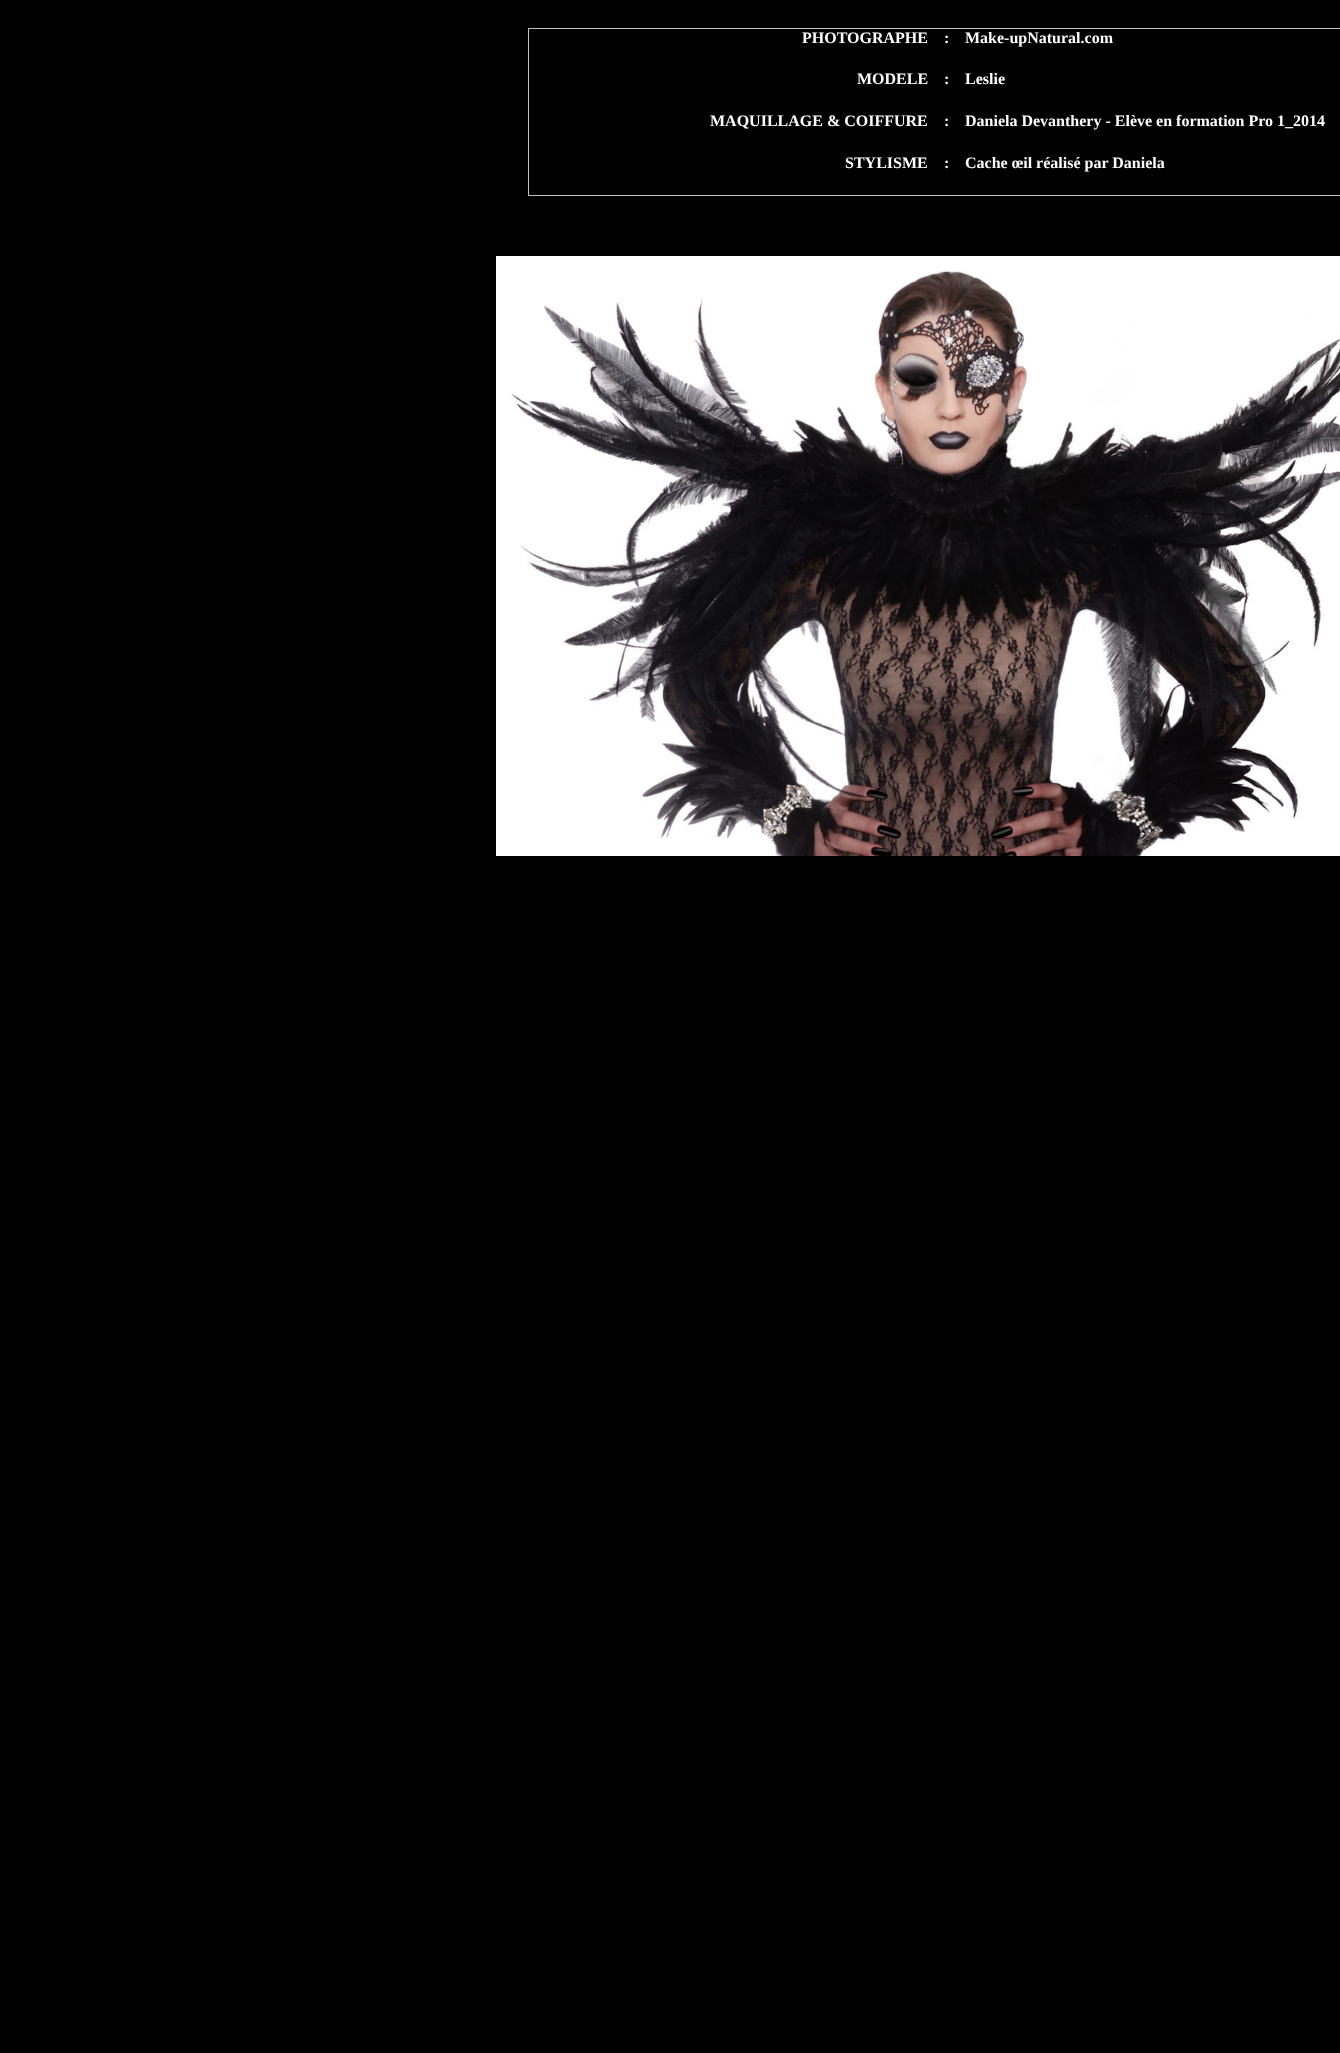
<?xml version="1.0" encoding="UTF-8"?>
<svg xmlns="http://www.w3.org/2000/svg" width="1340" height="2053">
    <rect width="100%" height="100%" fill="#000000"/>
    <rect x="528" y="28" width="812" height="1" fill="#C0C0C0"/>
    <rect x="528" y="29" width="1" height="166" fill="#C0C0C0"/>
    <text x="802" y="43" font-family="Liberation Serif" font-size="16" font-weight="700" fill="#FFFFFF">PHOTOGRAPHE</text>
    <text x="944" y="43" font-family="Liberation Serif" font-size="16" font-weight="700" fill="#FFFFFF">:</text>
    <text x="965" y="43" font-family="Liberation Serif" font-size="16" font-weight="700" fill="#FFFFFF">Make-upNatural.com</text>
    <text x="857" y="84" font-family="Liberation Serif" font-size="16" font-weight="700" fill="#FFFFFF">MODELE</text>
    <text x="944" y="84" font-family="Liberation Serif" font-size="16" font-weight="700" fill="#FFFFFF">:</text>
    <text x="965" y="84" font-family="Liberation Serif" font-size="16" font-weight="700" fill="#FFFFFF">Leslie</text>
    <text x="710" y="126" font-family="Liberation Serif" font-size="16" font-weight="700" fill="#FFFFFF">MAQUILLAGE &amp; COIFFURE</text>
    <text x="944" y="126" font-family="Liberation Serif" font-size="16" font-weight="700" fill="#FFFFFF">:</text>
    <text x="965" y="126" font-family="Liberation Serif" font-size="16" font-weight="700" fill="#FFFFFF">Daniela Devanthery - Elève en formation Pro 1_2014</text>
    <text x="845" y="168" font-family="Liberation Serif" font-size="16" font-weight="700" fill="#FFFFFF">STYLISME</text>
    <rect x="528" y="195" width="812" height="1" fill="#C0C0C0"/>
    <text x="944" y="168" font-family="Liberation Serif" font-size="16" font-weight="700" fill="#FFFFFF">:</text>
    <text x="965" y="168" font-family="Liberation Serif" font-size="16" font-weight="700" fill="#FFFFFF">Cache œil réalisé par Daniela</text>
    <image x="496" y="256" width="844" height="600" href="img_01.png"/>
</svg>
